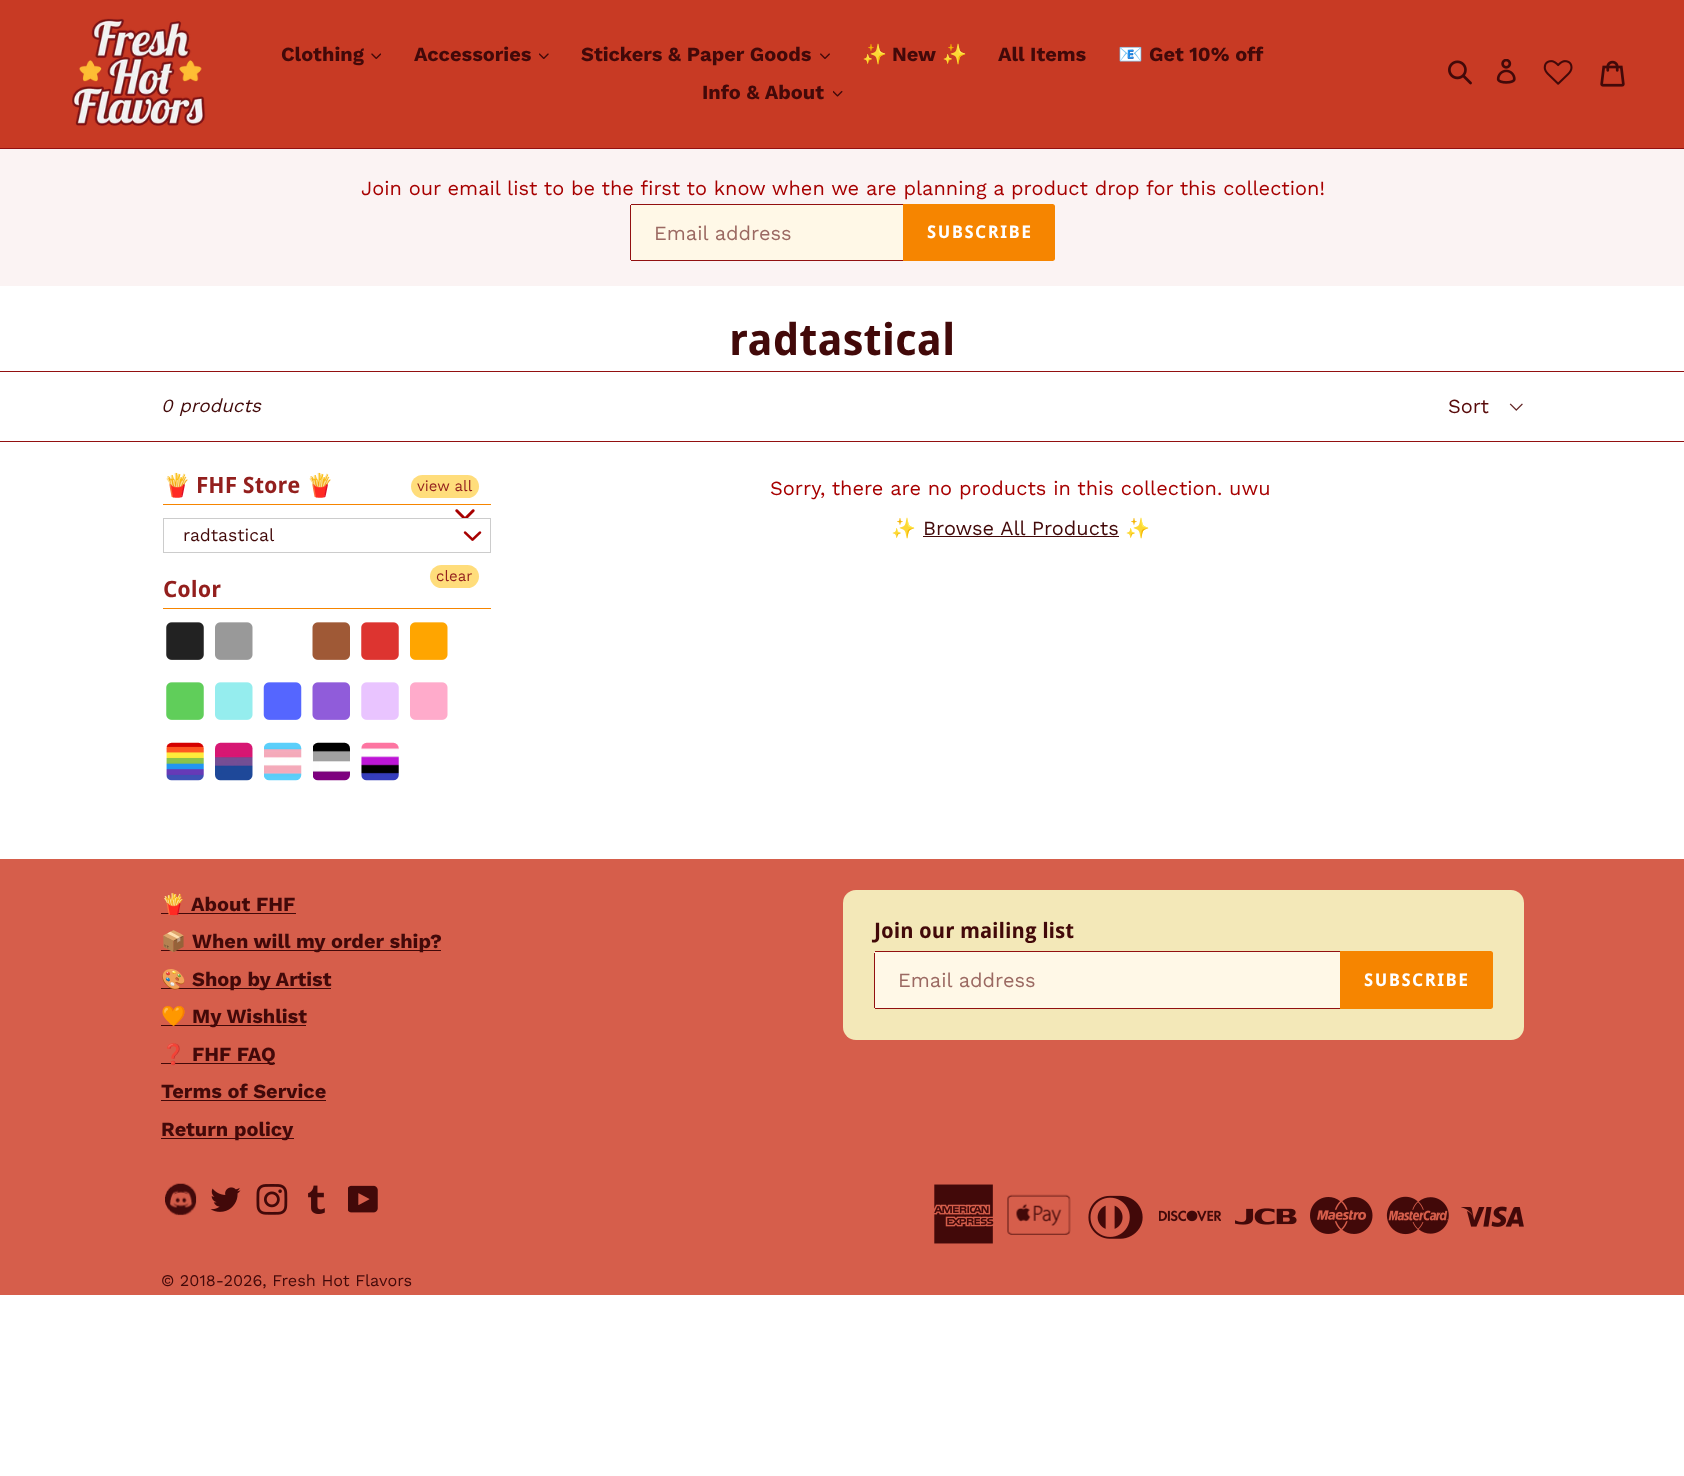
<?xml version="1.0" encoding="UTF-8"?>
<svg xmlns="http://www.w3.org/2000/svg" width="1684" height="1476">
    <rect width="100%" height="100%" fill="#FFFFFF"/>
    <rect x="0" y="0" width="1684" height="148" fill="#C83A24"/>
    <rect x="0" y="148" width="1684" height="1" fill="#921010"/>
    <image x="72" y="18" width="134" height="108" href="img_01.png"/>
    <text x="281" y="61" font-family="Work Sans" font-size="20" font-weight="700" fill="#420909">Clothing</text>
    <image x="371" y="53" width="10" height="6" href="img_02.png"/>
    <text x="414" y="61" font-family="Work Sans" font-size="20" font-weight="700" fill="#420909">Accessories</text>
    <image x="539" y="53" width="10" height="6" href="img_03.png"/>
    <text x="581" y="61" font-family="Work Sans" font-size="20" font-weight="700" fill="#420909">Stickers &amp; Paper Goods</text>
    <image x="820" y="53" width="10" height="6" href="img_04.png"/>
    <text x="862" y="61" font-family="Noto Color Emoji" font-size="20" font-weight="700" fill="#420909">✨</text>
    <text x="892" y="61" font-family="Work Sans" font-size="20" font-weight="700" fill="#420909">New</text>
    <text x="942" y="61" font-family="Noto Color Emoji" font-size="20" font-weight="700" fill="#420909">✨</text>
    <text x="998" y="61" font-family="Work Sans" font-size="20" font-weight="700" fill="#420909">All Items</text>
    <text x="1118" y="61" font-family="Noto Color Emoji" font-size="20" font-weight="700" fill="#420909">📧</text>
    <text x="1149" y="61" font-family="Work Sans" font-size="20" font-weight="700" fill="#420909">Get 10% off</text>
    <text x="702" y="99" font-family="Work Sans" font-size="20" font-weight="700" fill="#420909">Info &amp; About</text>
    <image x="833" y="90" width="10" height="7" href="img_05.png"/>
    <image x="1448" y="60" width="24" height="25" href="img_06.png"/>
    <image x="1496" y="59" width="20" height="25" href="img_07.png"/>
    <image x="1543" y="60" width="30" height="25" href="img_08.png"/>
    <image x="1600" y="60" width="25" height="27" href="img_09.png"/>
    <rect x="0" y="149" width="1684" height="137" fill="#FBF3F3"/>
    <text x="361" y="195" font-family="Work Sans" font-size="20" fill="#A70000">Join our email list to be the first to know when we are planning a product drop for this collection!</text>
    <path d="M 632.5 204 H 903 V 261 H 632.5 C 631 261 630 260 630 258.5 V 206.5 C 630 205 631 204 632.5 204 Z" fill="#FFF8E7"/>
    <rect x="631" y="204" width="272" height="1" fill="#921010"/>
    <rect x="631" y="260" width="272" height="1" fill="#921010"/>
    <rect x="630" y="205" width="1" height="55" fill="#921010"/>
    <text x="654" y="240" font-family="Work Sans" font-size="20" fill="#9B6962">Email address</text>
    <path d="M 903 204 H 1052.5 C 1054 204 1055 205 1055 206.5 V 258.5 C 1055 260 1054 261 1052.5 261 H 903 Z" fill="#F68500"/>
    <text x="927" y="238" font-family="Droid Sans" font-size="17.5" font-weight="700" letter-spacing="1.5" fill="#FFFFFF">SUBSCRIBE</text>
    <text x="729" y="355" font-family="Droid Sans" font-size="43.75" font-weight="700" fill="#420909">radtastical</text>
    <rect x="0" y="371" width="1684" height="1" fill="#921010"/>
    <rect x="0" y="441" width="1684" height="1" fill="#921010"/>
    <text x="161" y="412" font-family="Work Sans" font-size="18.75" font-style="italic" fill="#420909">0 products</text>
    <image x="1509" y="403" width="14" height="8" href="img_10.png"/>
    <text x="1448" y="413" font-family="Work Sans" font-size="20" fill="#580A0A">Sort</text>
    <rect x="163" y="504" width="328" height="1" fill="#F68500"/>
    <text x="163" y="493" font-family="Noto Color Emoji" font-size="22.5" font-weight="700" fill="#931F1D">🍟</text>
    <text x="196" y="493" font-family="Droid Sans" font-size="22.5" font-weight="700" fill="#931F1D">FHF Store</text>
    <text x="306" y="493" font-family="Noto Color Emoji" font-size="22.5" font-weight="700" fill="#931F1D">🍟</text>
    <rect x="411" y="475" width="68" height="23" rx="11.5" fill="#FFDD7B"/>
    <text x="417" y="491" font-family="Work Sans" font-size="15" fill="#931F1D">view all</text>
    <image x="455" y="509" width="20" height="9" href="img_11.png"/>
    <rect x="163.5" y="518.5" width="327" height="34" fill="none" stroke="#CCCCCC"/>
    <text x="183" y="541" font-family="Work Sans" font-size="17.5" fill="#420909">radtastical</text>
    <image x="463" y="531" width="19" height="10" href="img_12.png"/>
    <rect x="430" y="565" width="49" height="23" rx="11.5" fill="#FFDD7B"/>
    <text x="436" y="581" font-family="Work Sans" font-size="15" fill="#931F1D">clear</text>
    <rect x="163" y="608" width="328" height="1" fill="#F68500"/>
    <text x="163" y="597" font-family="Droid Sans" font-size="22.5" font-weight="700" fill="#931F1D">Color</text>
    <image x="166" y="622" width="38" height="38" href="img_13.png"/>
    <image x="215" y="622" width="38" height="38" href="img_14.png"/>
    <image x="312" y="622" width="38" height="38" href="img_15.png"/>
    <image x="361" y="622" width="38" height="38" href="img_16.png"/>
    <image x="410" y="622" width="38" height="38" href="img_17.png"/>
    <image x="166" y="682" width="38" height="38" href="img_18.png"/>
    <image x="215" y="682" width="38" height="38" href="img_19.png"/>
    <image x="263" y="682" width="39" height="38" href="img_20.png"/>
    <image x="312" y="682" width="38" height="38" href="img_21.png"/>
    <image x="361" y="682" width="38" height="38" href="img_22.png"/>
    <image x="410" y="682" width="38" height="38" href="img_23.png"/>
    <image x="166" y="742" width="38" height="39" href="img_24.png"/>
    <image x="215" y="742" width="38" height="39" href="img_25.png"/>
    <image x="264" y="742" width="38" height="39" href="img_26.png"/>
    <image x="313" y="742" width="37" height="39" href="img_27.png"/>
    <image x="361" y="742" width="38" height="39" href="img_28.png"/>
    <text x="770" y="495" font-family="Work Sans" font-size="20" fill="#A70000">Sorry, there are no products in this collection. uwu</text>
    <text x="891" y="535" font-family="Noto Color Emoji" font-size="20" fill="#A70000">✨</text>
    <text x="923" y="535" font-family="Work Sans" font-size="20" fill="#420909">Browse All Products</text>
    <rect x="923" y="536" width="196" height="1" fill="#420909"/>
    <text x="1125" y="535" font-family="Noto Color Emoji" font-size="20" fill="#A70000">✨</text>
    <rect x="0" y="859" width="1684" height="436" fill="#D65E4B"/>
    <rect x="161" y="913" width="135" height="1" fill="#420909"/>
    <text x="161" y="911" font-family="Noto Color Emoji" font-size="20" font-weight="700" fill="#420909">🍟</text>
    <text x="191" y="911" font-family="Work Sans" font-size="20" font-weight="700" fill="#420909">About FHF</text>
    <rect x="161" y="950" width="280" height="1" fill="#420909"/>
    <text x="161" y="948" font-family="Noto Color Emoji" font-size="20" font-weight="700" fill="#420909">📦</text>
    <text x="192" y="948" font-family="Work Sans" font-size="20" font-weight="700" fill="#420909">When will my order ship?</text>
    <rect x="161" y="988" width="170" height="1" fill="#420909"/>
    <text x="161" y="986" font-family="Noto Color Emoji" font-size="20" font-weight="700" fill="#420909">🎨</text>
    <text x="192" y="986" font-family="Work Sans" font-size="20" font-weight="700" fill="#420909">Shop by Artist</text>
    <rect x="161" y="1025" width="145" height="1" fill="#420909"/>
    <text x="161" y="1023" font-family="Noto Color Emoji" font-size="20" font-weight="700" fill="#420909">🧡</text>
    <text x="192" y="1023" font-family="Work Sans" font-size="20" font-weight="700" fill="#420909">My Wishlist</text>
    <rect x="161" y="1063" width="114" height="1" fill="#420909"/>
    <text x="161" y="1061" font-family="Noto Color Emoji" font-size="20" font-weight="700" fill="#420909">❓</text>
    <text x="192" y="1061" font-family="Work Sans" font-size="20" font-weight="700" fill="#420909">FHF FAQ</text>
    <text x="161" y="1098" font-family="Work Sans" font-size="20" font-weight="700" fill="#420909">Terms of Service</text>
    <rect x="161" y="1100" width="165" height="1" fill="#420909"/>
    <rect x="161" y="1138" width="133" height="1" fill="#420909"/>
    <text x="161" y="1136" font-family="Work Sans" font-size="20" font-weight="700" fill="#420909">Return policy</text>
    <rect x="843" y="890" width="681" height="150" rx="13" fill="#F3E8B8"/>
    <text x="874" y="938" font-family="Droid Sans" font-size="21.25" font-weight="700" fill="#420909">Join our mailing list</text>
    <path d="M 876.5 951 H 1340 V 1009 H 876.5 C 875 1009 874 1008 874 1006.5 V 953.5 C 874 952 875 951 876.5 951 Z" fill="#FFF8E7"/>
    <rect x="875" y="951" width="465" height="1" fill="#921010"/>
    <rect x="875" y="1008" width="465" height="1" fill="#921010"/>
    <rect x="874" y="953" width="1" height="55" fill="#921010"/>
    <text x="898" y="987" font-family="Work Sans" font-size="20" fill="#9B6962">Email address</text>
    <path d="M 1340 951 H 1490.5 C 1492 951 1493 952 1493 953.5 V 1006.5 C 1493 1008 1492 1009 1490.5 1009 H 1340 Z" fill="#F68500"/>
    <text x="1364" y="986" font-family="Droid Sans" font-size="17.5" font-weight="700" letter-spacing="1.5" fill="#FFFFFF">SUBSCRIBE</text>
    <image x="165" y="1183" width="32" height="33" href="img_29.png"/>
    <image x="210" y="1187" width="31" height="25" href="img_30.png"/>
    <image x="256" y="1184" width="32" height="31" href="img_31.png"/>
    <image x="308" y="1185" width="17" height="29" href="img_32.png"/>
    <image x="348" y="1185" width="30" height="28" href="img_33.png"/>
    <image x="934" y="1184" width="60" height="60" href="img_34.png"/>
    <image x="1007" y="1194" width="64" height="41" href="img_35.png"/>
    <image x="1088" y="1195" width="55" height="44" href="img_36.png"/>
    <image x="1159" y="1210" width="62" height="12" href="img_37.png"/>
    <image x="1235" y="1208" width="62" height="17" href="img_38.png"/>
    <image x="1310" y="1197" width="63" height="37" href="img_39.png"/>
    <image x="1386" y="1196" width="63" height="39" href="img_40.png"/>
    <image x="1461" y="1206" width="63" height="21" href="img_41.png"/>
    <text x="161" y="1286" font-family="Work Sans" font-size="16.25" fill="#420909">© 2018-2026, Fresh Hot Flavors</text>
</svg>
